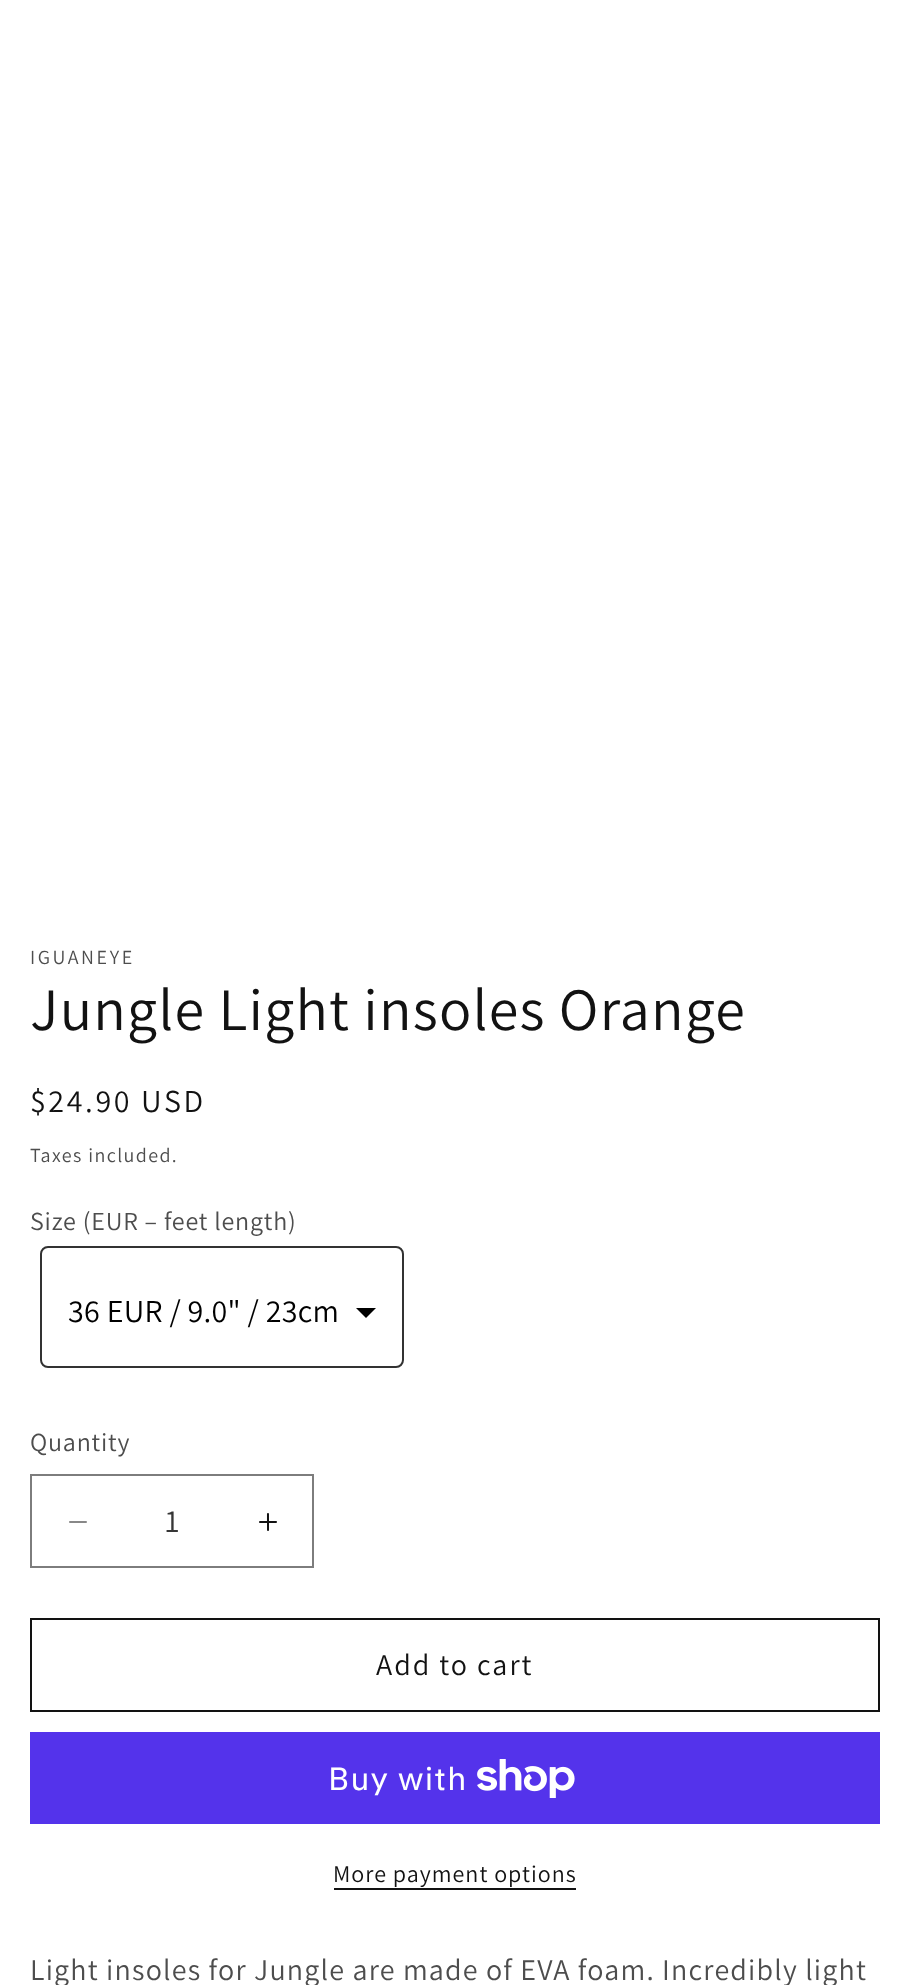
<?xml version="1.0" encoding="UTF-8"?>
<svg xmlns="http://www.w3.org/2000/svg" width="909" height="1985">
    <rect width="100%" height="100%" fill="#FFFFFF"/>
    <text x="30" y="964" font-family="Assistant" font-size="20" letter-spacing="2.6" fill="#4D4D4D">IGUANEYE</text>
    <text x="30" y="1030" font-family="Assistant" font-size="60" letter-spacing="1.2" fill="#121212">Jungle Light insoles Orange</text>
    <text x="30" y="1112" font-family="Assistant" font-size="32" letter-spacing="2.6" fill="#121212">$24.90 USD</text>
    <text x="30" y="1162" font-family="Assistant" font-size="20" letter-spacing="1.4" fill="#4D4D4D">Taxes included.</text>
    <text x="30" y="1230" font-family="Assistant" font-size="26" letter-spacing="0.8" fill="#4D4D4D">Size (EUR – feet length)</text>
    <path d="M 356 1308 L 366 1318 L 376 1308 Z" fill="#000000"/>
    <rect x="41" y="1247" width="362" height="120" rx="7" fill="none" stroke="#323232" stroke-width="2"/>
    <text x="68" y="1322" font-family="Assistant" font-size="32" letter-spacing="0.25" fill="#000000">36 EUR / 9.0" / 23cm</text>
    <text x="30" y="1451" font-family="Assistant" font-size="26" letter-spacing="0.8" fill="#4D4D4D">Quantity</text>
    <image x="69" y="1521" width="18" height="2" href="img_01.png"/>
    <image x="259" y="1513" width="18" height="18" href="img_02.png"/>
    <rect x="31" y="1475" width="282" height="92" fill="none" stroke="#7D7D7D" stroke-width="2"/>
    <text x="165" y="1532" font-family="Assistant" font-size="32" fill="#363636">1</text>
    <rect x="31" y="1619" width="848" height="92" fill="none" stroke="#121212" stroke-width="2"/>
    <text x="376" y="1675" font-family="Assistant" font-size="30" letter-spacing="2" fill="#121212">Add to cart</text>
    <rect x="30" y="1732" width="850" height="92" fill="#5433EB"/>
    <text x="328" y="1790" font-family="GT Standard" font-size="32" letter-spacing="1.2" fill="#FFFFFF">Buy with</text>
    <image x="477" y="1759" width="98" height="39" href="img_03.png"/>
    <text x="333" y="1882" font-family="Assistant" font-size="24" letter-spacing="1" fill="#121212">More payment options</text>
    <rect x="334" y="1888" width="242" height="2" fill="#121212"/>
    <text x="30" y="1980" font-family="Assistant" font-size="30" letter-spacing="1.2" fill="#4D4D4D">Light insoles for Jungle are made of EVA foam. Incredibly light</text>
</svg>
